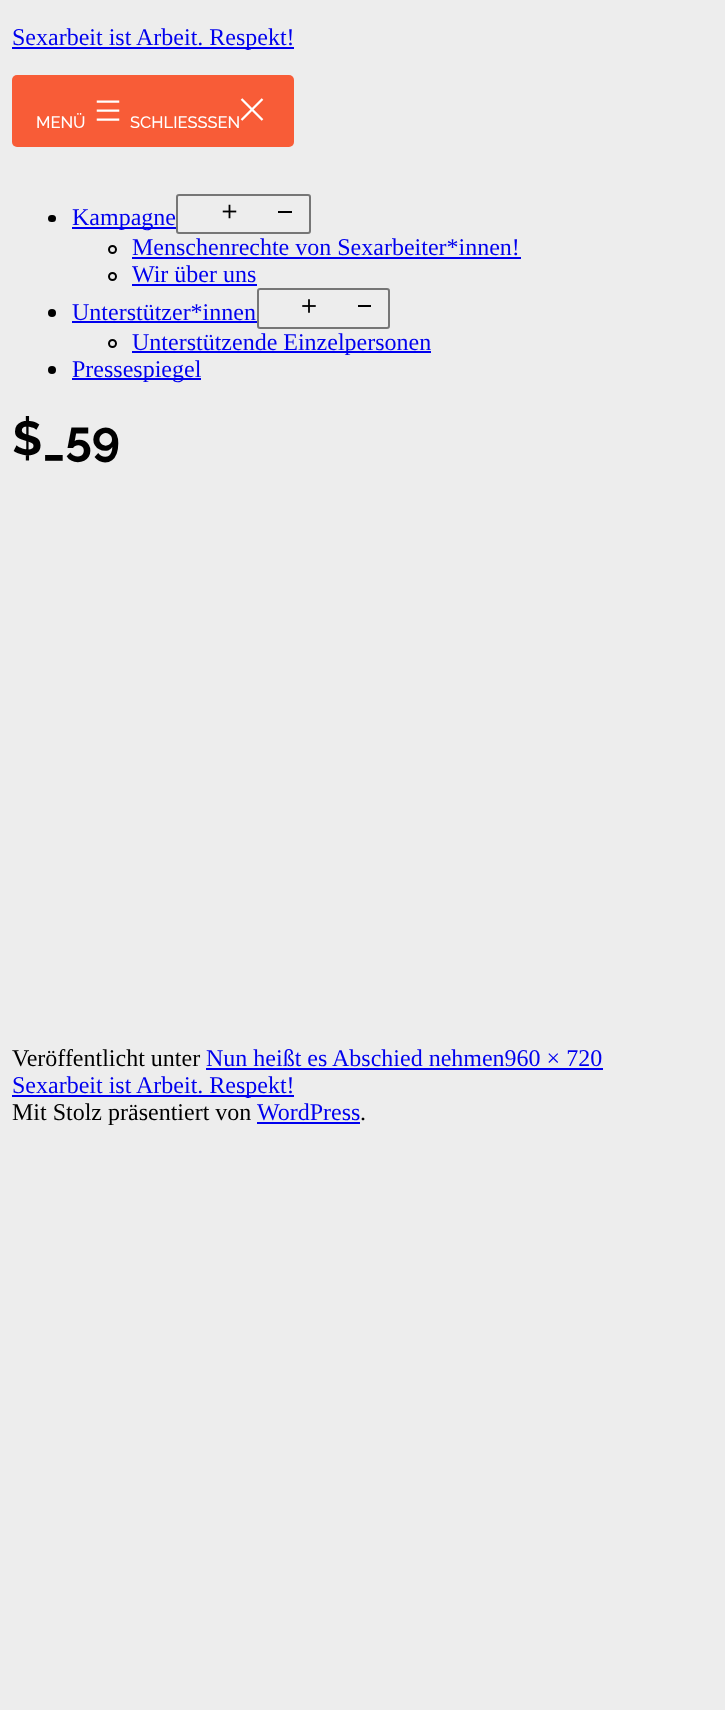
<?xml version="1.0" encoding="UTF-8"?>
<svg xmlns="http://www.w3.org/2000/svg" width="725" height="1710">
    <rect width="100%" height="100%" fill="#EDEDED"/>
    <rect x="12" y="47" width="282" height="2" fill="#0000EE"/>
    <text x="12" y="45" font-family="Liberation Serif" font-size="24" fill="#0000EE">Sexarbeit ist Arbeit. Respekt!</text>
    <rect x="12" y="75" width="282" height="72" rx="5" fill="#F85C37"/>
    <text x="36" y="128" font-family="Raleway" font-size="16.5" font-weight="500" fill="#FFFFFF">MENÜ</text>
    <image x="96" y="100" width="24" height="21" href="img_01.png"/>
    <text x="130" y="128" font-family="Raleway" font-size="16.5" font-weight="500" fill="#FFFFFF">SCHLIESSSEN</text>
    <image x="240" y="98" width="24" height="23" href="img_02.png"/>
    <rect x="48" y="215" width="8" height="7" rx="3.5" fill="#000000"/>
    <rect x="72" y="227" width="104" height="2" fill="#0000EE"/>
    <text x="72" y="225" font-family="Liberation Serif" font-size="24" fill="#0000EE">Kampagne</text>
    <rect x="177" y="195" width="133" height="38" rx="2" fill="none" stroke="#767676" stroke-width="2"/>
    <image x="222" y="204" width="15" height="15" href="img_03.png"/>
    <rect x="278" y="211" width="14" height="2" fill="#000000"/>
    <circle cx="112.5" cy="249.5" r="3.5" fill="none" stroke="#000000" stroke-width="2"/>
    <text x="132" y="255" font-family="Liberation Serif" font-size="24" fill="#0000EE">Menschenrechte von Sexarbeiter*innen!</text>
    <rect x="132" y="257" width="389" height="2" fill="#0000EE"/>
    <circle cx="112.5" cy="276.5" r="3.5" fill="none" stroke="#000000" stroke-width="2"/>
    <text x="132" y="282" font-family="Liberation Serif" font-size="24" fill="#0000EE">Wir über uns</text>
    <rect x="132" y="284" width="125" height="2" fill="#0000EE"/>
    <circle cx="52" cy="313" r="4" fill="#000000"/>
    <text x="72" y="320" font-family="Liberation Serif" font-size="24" fill="#0000EE">Unterstützer*innen</text>
    <rect x="72" y="321" width="185" height="2" fill="#0000EE"/>
    <rect x="258" y="289" width="131" height="39" rx="2" fill="none" stroke="#767676" stroke-width="2"/>
    <image x="302" y="299" width="14" height="14" href="img_04.png"/>
    <rect x="358" y="305" width="13" height="2" fill="#000000"/>
    <circle cx="112.5" cy="343.5" r="3.5" fill="none" stroke="#000000" stroke-width="2"/>
    <rect x="132" y="351" width="299" height="2" fill="#0000EE"/>
    <text x="132" y="350" font-family="Liberation Serif" font-size="24" fill="#0000EE">Unterstützende Einzelpersonen</text>
    <circle cx="52" cy="370" r="4" fill="#000000"/>
    <rect x="72" y="378" width="129" height="2" fill="#0000EE"/>
    <text x="72" y="377" font-family="Liberation Serif" font-size="24" fill="#0000EE">Pressespiegel</text>
    <text x="12" y="455" font-family="Raleway" font-size="48" font-weight="700" fill="#000000">$_59</text>
    <text x="12" y="1066" font-family="Liberation Serif" font-size="24" fill="#000000">Veröffentlicht unter</text>
    <text x="206" y="1066" font-family="Liberation Serif" font-size="24" fill="#0000EE">Nun heißt es Abschied nehmen960 × 720</text>
    <rect x="206" y="1068" width="397" height="2" fill="#0000EE"/>
    <rect x="12" y="1095" width="282" height="2" fill="#0000EE"/>
    <text x="12" y="1093" font-family="Liberation Serif" font-size="24" fill="#0000EE">Sexarbeit ist Arbeit. Respekt!</text>
    <text x="12" y="1120" font-family="Liberation Serif" font-size="24" fill="#000000">Mit Stolz präsentiert von</text>
    <text x="257" y="1120" font-family="Liberation Serif" font-size="24" fill="#0000EE">WordPress</text>
    <rect x="257" y="1122" width="103" height="2" fill="#0000EE"/>
    <text x="360" y="1120" font-family="Liberation Serif" font-size="24" fill="#000000">.</text>
</svg>
